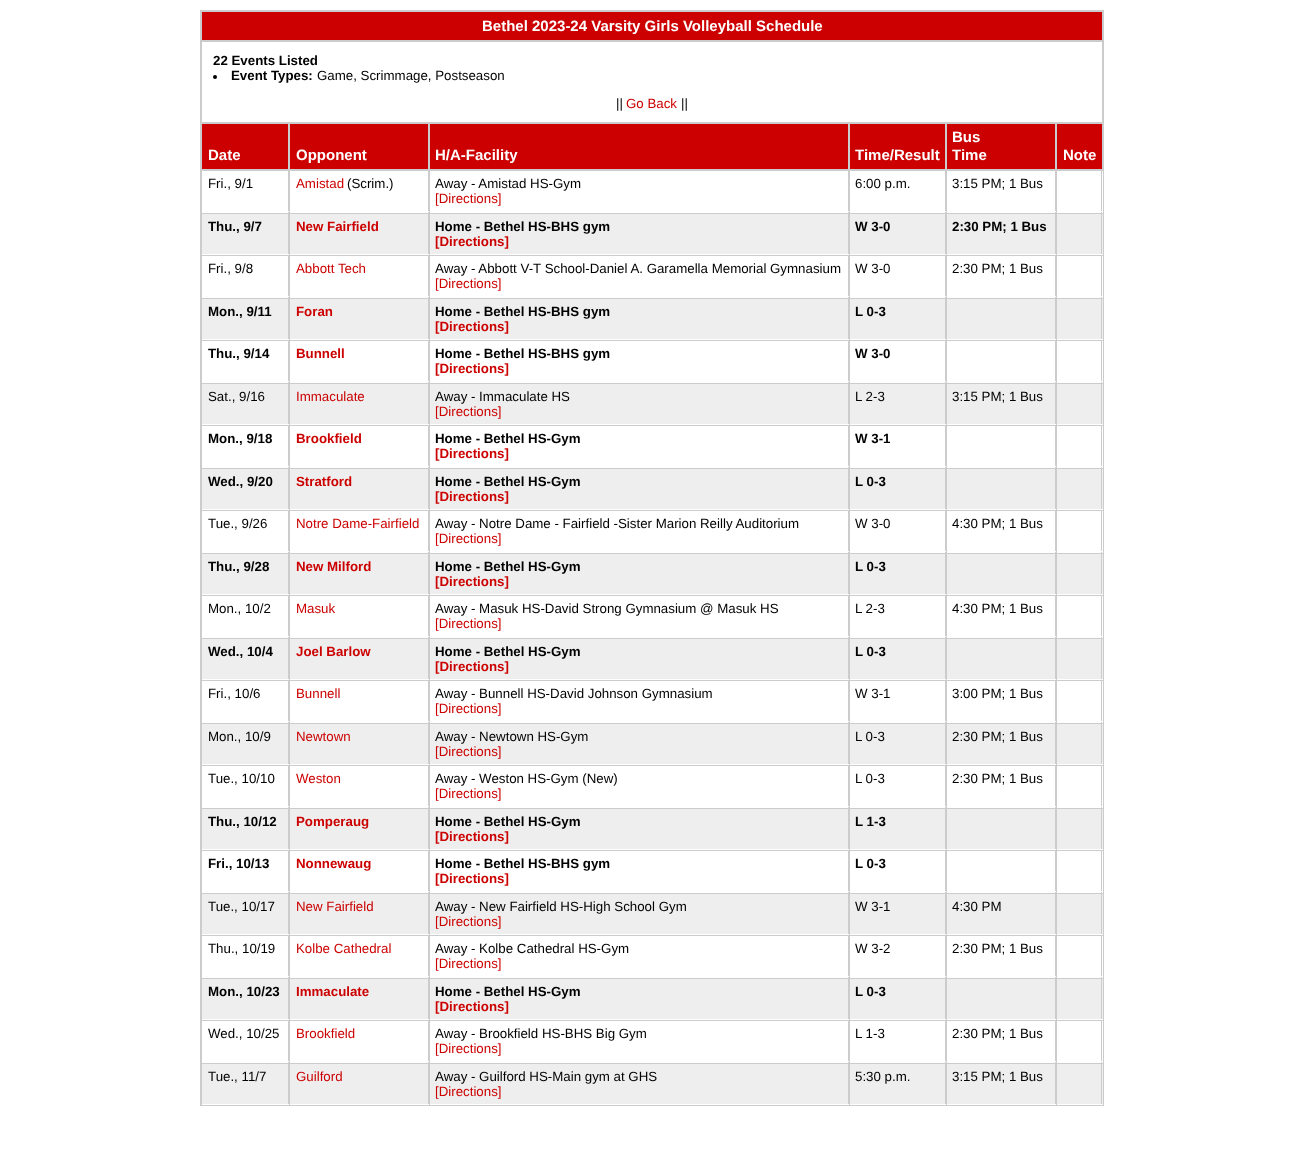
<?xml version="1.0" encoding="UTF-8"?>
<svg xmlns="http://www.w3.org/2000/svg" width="1303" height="1176">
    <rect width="100%" height="100%" fill="#FFFFFF"/>
    <rect x="200" y="10" width="904" height="1096" fill="#CCCCCC"/>
    <rect x="202" y="12" width="900" height="28" fill="#CC0000"/>
    <text x="482" y="31" font-family="Liberation Sans" font-size="15" font-weight="700" fill="#FFFFFF">Bethel 2023-24 Varsity Girls Volleyball Schedule</text>
    <rect x="202" y="42" width="900" height="80" fill="#FFFFFF"/>
    <text x="213" y="65" font-family="Liberation Sans" font-size="13.3" font-weight="700" fill="#000000">22 Events Listed</text>
    <circle cx="215" cy="77" r="2" fill="#000000"/>
    <text x="231" y="80" font-family="Liberation Sans" font-size="13.3" font-weight="700" fill="#000000">Event Types:</text>
    <text x="317" y="80" font-family="Liberation Sans" font-size="13.3" fill="#000000">Game, Scrimmage, Postseason</text>
    <text x="616" y="108" font-family="Liberation Sans" font-size="13.3" fill="#000000">||</text>
    <text x="626" y="108" font-family="Liberation Sans" font-size="13.3" fill="#CC0000">Go Back</text>
    <text x="681" y="108" font-family="Liberation Sans" font-size="13.3" fill="#000000">||</text>
    <rect x="202" y="124" width="86" height="45" fill="#CC0000"/>
    <text x="208" y="160" font-family="Liberation Sans" font-size="15" font-weight="700" fill="#FFFFFF">Date</text>
    <rect x="290" y="124" width="138" height="45" fill="#CC0000"/>
    <text x="296" y="160" font-family="Liberation Sans" font-size="15" font-weight="700" fill="#FFFFFF">Opponent</text>
    <rect x="430" y="124" width="418" height="45" fill="#CC0000"/>
    <text x="435" y="160" font-family="Liberation Sans" font-size="15" font-weight="700" fill="#FFFFFF">H/A-Facility</text>
    <rect x="850" y="124" width="95" height="45" fill="#CC0000"/>
    <text x="855" y="160" font-family="Liberation Sans" font-size="15" font-weight="700" fill="#FFFFFF">Time/Result</text>
    <rect x="947" y="124" width="108" height="45" fill="#CC0000"/>
    <text font-family="Liberation Sans" font-size="15" font-weight="700" fill="#FFFFFF">
        <tspan x="952" y="142">Bus</tspan>
        <tspan x="952" y="160">Time</tspan>
    </text>
    <rect x="1057" y="124" width="45" height="45" fill="#CC0000"/>
    <text x="1063" y="160" font-family="Liberation Sans" font-size="15" font-weight="700" fill="#FFFFFF">Note</text>
    <rect x="202" y="171" width="901" height="42" fill="#FFFFFF"/>
    <rect x="288" y="170" width="2" height="43" fill="#CCCCCC"/>
    <rect x="201" y="211" width="88" height="1" fill="#FFFFFF"/>
    <rect x="201" y="211" width="1" height="2" fill="#CCCCCC"/>
    <text x="208" y="188" font-family="Liberation Sans" font-size="13.3" fill="#000000">Fri., 9/1</text>
    <rect x="428" y="170" width="2" height="43" fill="#CCCCCC"/>
    <rect x="428" y="211" width="1" height="1" fill="#FFFFFF"/>
    <text x="296" y="188" font-family="Liberation Sans" font-size="13.3" fill="#CC0000">Amistad</text>
    <text x="347" y="188" font-family="Liberation Sans" font-size="13.3" fill="#000000">(Scrim.)</text>
    <rect x="848" y="170" width="2" height="43" fill="#CCCCCC"/>
    <rect x="848" y="211" width="1" height="1" fill="#FFFFFF"/>
    <text x="435" y="188" font-family="Liberation Sans" font-size="13.3" fill="#000000">Away - Amistad HS-Gym</text>
    <text x="435" y="203" font-family="Liberation Sans" font-size="13.3" fill="#CC0000">[Directions]</text>
    <rect x="945" y="170" width="2" height="43" fill="#CCCCCC"/>
    <rect x="945" y="211" width="1" height="1" fill="#FFFFFF"/>
    <text x="855" y="188" font-family="Liberation Sans" font-size="13.3" fill="#000000">6:00 p.m.</text>
    <rect x="1055" y="170" width="2" height="43" fill="#CCCCCC"/>
    <rect x="1055" y="211" width="1" height="1" fill="#FFFFFF"/>
    <text x="952" y="188" font-family="Liberation Sans" font-size="13.3" fill="#000000">3:15 PM; 1 Bus</text>
    <rect x="1101" y="170" width="1" height="43" fill="#CCCCCC"/>
    <rect x="1101" y="211" width="2" height="1" fill="#FFFFFF"/>
    <rect x="202" y="214" width="901" height="40" fill="#EEEEEE"/>
    <rect x="288" y="213" width="1" height="42" fill="#CCCCCC"/>
    <rect x="201" y="254" width="88" height="1" fill="#FFFFFF"/>
    <rect x="201" y="254" width="1" height="1" fill="#CCCCCC"/>
    <text x="208" y="231" font-family="Liberation Sans" font-size="13.3" font-weight="700" fill="#000000">Thu., 9/7</text>
    <rect x="428" y="213" width="1" height="42" fill="#CCCCCC"/>
    <rect x="289" y="254" width="140" height="1" fill="#FFFFFF"/>
    <rect x="289" y="213" width="1" height="42" fill="#CCCCCC"/>
    <text x="296" y="231" font-family="Liberation Sans" font-size="13.3" font-weight="700" fill="#CC0000">New Fairfield</text>
    <rect x="848" y="213" width="1" height="42" fill="#CCCCCC"/>
    <rect x="429" y="254" width="420" height="1" fill="#FFFFFF"/>
    <rect x="429" y="213" width="1" height="42" fill="#CCCCCC"/>
    <text x="435" y="231" font-family="Liberation Sans" font-size="13.3" font-weight="700" fill="#000000">Home - Bethel HS-BHS gym</text>
    <text x="435" y="246" font-family="Liberation Sans" font-size="13.3" font-weight="700" fill="#CC0000">[Directions]</text>
    <rect x="945" y="213" width="1" height="42" fill="#CCCCCC"/>
    <rect x="849" y="254" width="97" height="1" fill="#FFFFFF"/>
    <rect x="849" y="213" width="1" height="42" fill="#CCCCCC"/>
    <text x="855" y="231" font-family="Liberation Sans" font-size="13.3" font-weight="700" fill="#000000">W 3-0</text>
    <rect x="1055" y="213" width="1" height="42" fill="#CCCCCC"/>
    <rect x="946" y="254" width="110" height="1" fill="#FFFFFF"/>
    <rect x="946" y="213" width="1" height="42" fill="#CCCCCC"/>
    <text x="952" y="231" font-family="Liberation Sans" font-size="13.3" font-weight="700" fill="#000000">2:30 PM; 1 Bus</text>
    <rect x="1101" y="213" width="1" height="42" fill="#CCCCCC"/>
    <rect x="1056" y="254" width="47" height="1" fill="#FFFFFF"/>
    <rect x="1056" y="213" width="1" height="42" fill="#CCCCCC"/>
    <rect x="202" y="256" width="901" height="42" fill="#FFFFFF"/>
    <rect x="288" y="255" width="2" height="43" fill="#CCCCCC"/>
    <rect x="201" y="296" width="88" height="1" fill="#FFFFFF"/>
    <rect x="201" y="296" width="1" height="2" fill="#CCCCCC"/>
    <text x="208" y="273" font-family="Liberation Sans" font-size="13.3" fill="#000000">Fri., 9/8</text>
    <rect x="428" y="255" width="2" height="43" fill="#CCCCCC"/>
    <rect x="428" y="296" width="1" height="1" fill="#FFFFFF"/>
    <text x="296" y="273" font-family="Liberation Sans" font-size="13.3" fill="#CC0000">Abbott Tech</text>
    <rect x="848" y="255" width="2" height="43" fill="#CCCCCC"/>
    <rect x="848" y="296" width="1" height="1" fill="#FFFFFF"/>
    <text x="435" y="273" font-family="Liberation Sans" font-size="13.3" fill="#000000">Away - Abbott V-T School-Daniel A. Garamella Memorial Gymnasium</text>
    <text x="435" y="288" font-family="Liberation Sans" font-size="13.3" fill="#CC0000">[Directions]</text>
    <rect x="945" y="255" width="2" height="43" fill="#CCCCCC"/>
    <rect x="945" y="296" width="1" height="1" fill="#FFFFFF"/>
    <text x="855" y="273" font-family="Liberation Sans" font-size="13.3" fill="#000000">W 3-0</text>
    <rect x="1055" y="255" width="2" height="43" fill="#CCCCCC"/>
    <rect x="1055" y="296" width="1" height="1" fill="#FFFFFF"/>
    <text x="952" y="273" font-family="Liberation Sans" font-size="13.3" fill="#000000">2:30 PM; 1 Bus</text>
    <rect x="1101" y="255" width="1" height="43" fill="#CCCCCC"/>
    <rect x="1101" y="296" width="2" height="1" fill="#FFFFFF"/>
    <rect x="202" y="299" width="901" height="40" fill="#EEEEEE"/>
    <rect x="288" y="298" width="1" height="42" fill="#CCCCCC"/>
    <rect x="201" y="339" width="88" height="1" fill="#FFFFFF"/>
    <rect x="201" y="339" width="1" height="1" fill="#CCCCCC"/>
    <text x="208" y="316" font-family="Liberation Sans" font-size="13.3" font-weight="700" fill="#000000">Mon., 9/11</text>
    <rect x="428" y="298" width="1" height="42" fill="#CCCCCC"/>
    <rect x="289" y="339" width="140" height="1" fill="#FFFFFF"/>
    <rect x="289" y="298" width="1" height="42" fill="#CCCCCC"/>
    <text x="296" y="316" font-family="Liberation Sans" font-size="13.3" font-weight="700" fill="#CC0000">Foran</text>
    <rect x="848" y="298" width="1" height="42" fill="#CCCCCC"/>
    <rect x="429" y="339" width="420" height="1" fill="#FFFFFF"/>
    <rect x="429" y="298" width="1" height="42" fill="#CCCCCC"/>
    <text x="435" y="316" font-family="Liberation Sans" font-size="13.3" font-weight="700" fill="#000000">Home - Bethel HS-BHS gym</text>
    <text x="435" y="331" font-family="Liberation Sans" font-size="13.3" font-weight="700" fill="#CC0000">[Directions]</text>
    <rect x="945" y="298" width="1" height="42" fill="#CCCCCC"/>
    <rect x="849" y="339" width="97" height="1" fill="#FFFFFF"/>
    <rect x="849" y="298" width="1" height="42" fill="#CCCCCC"/>
    <text x="855" y="316" font-family="Liberation Sans" font-size="13.3" font-weight="700" fill="#000000">L 0-3</text>
    <rect x="1055" y="298" width="1" height="42" fill="#CCCCCC"/>
    <rect x="946" y="339" width="110" height="1" fill="#FFFFFF"/>
    <rect x="946" y="298" width="1" height="42" fill="#CCCCCC"/>
    <rect x="1101" y="298" width="1" height="42" fill="#CCCCCC"/>
    <rect x="1056" y="339" width="47" height="1" fill="#FFFFFF"/>
    <rect x="1056" y="298" width="1" height="42" fill="#CCCCCC"/>
    <rect x="202" y="341" width="901" height="42" fill="#FFFFFF"/>
    <rect x="288" y="340" width="2" height="43" fill="#CCCCCC"/>
    <rect x="201" y="381" width="88" height="1" fill="#FFFFFF"/>
    <rect x="201" y="381" width="1" height="2" fill="#CCCCCC"/>
    <text x="208" y="358" font-family="Liberation Sans" font-size="13.3" font-weight="700" fill="#000000">Thu., 9/14</text>
    <rect x="428" y="340" width="2" height="43" fill="#CCCCCC"/>
    <rect x="428" y="381" width="1" height="1" fill="#FFFFFF"/>
    <text x="296" y="358" font-family="Liberation Sans" font-size="13.3" font-weight="700" fill="#CC0000">Bunnell</text>
    <rect x="848" y="340" width="2" height="43" fill="#CCCCCC"/>
    <rect x="848" y="381" width="1" height="1" fill="#FFFFFF"/>
    <text x="435" y="358" font-family="Liberation Sans" font-size="13.3" font-weight="700" fill="#000000">Home - Bethel HS-BHS gym</text>
    <text x="435" y="373" font-family="Liberation Sans" font-size="13.3" font-weight="700" fill="#CC0000">[Directions]</text>
    <rect x="945" y="340" width="2" height="43" fill="#CCCCCC"/>
    <rect x="945" y="381" width="1" height="1" fill="#FFFFFF"/>
    <text x="855" y="358" font-family="Liberation Sans" font-size="13.3" font-weight="700" fill="#000000">W 3-0</text>
    <rect x="1055" y="340" width="2" height="43" fill="#CCCCCC"/>
    <rect x="1055" y="381" width="1" height="1" fill="#FFFFFF"/>
    <rect x="1101" y="340" width="1" height="43" fill="#CCCCCC"/>
    <rect x="1101" y="381" width="2" height="1" fill="#FFFFFF"/>
    <rect x="202" y="384" width="901" height="40" fill="#EEEEEE"/>
    <rect x="288" y="383" width="1" height="42" fill="#CCCCCC"/>
    <rect x="201" y="424" width="88" height="1" fill="#FFFFFF"/>
    <rect x="201" y="424" width="1" height="1" fill="#CCCCCC"/>
    <text x="208" y="401" font-family="Liberation Sans" font-size="13.3" fill="#000000">Sat., 9/16</text>
    <rect x="428" y="383" width="1" height="42" fill="#CCCCCC"/>
    <rect x="289" y="424" width="140" height="1" fill="#FFFFFF"/>
    <rect x="289" y="383" width="1" height="42" fill="#CCCCCC"/>
    <text x="296" y="401" font-family="Liberation Sans" font-size="13.3" fill="#CC0000">Immaculate</text>
    <rect x="848" y="383" width="1" height="42" fill="#CCCCCC"/>
    <rect x="429" y="424" width="420" height="1" fill="#FFFFFF"/>
    <rect x="429" y="383" width="1" height="42" fill="#CCCCCC"/>
    <text x="435" y="401" font-family="Liberation Sans" font-size="13.3" fill="#000000">Away - Immaculate HS</text>
    <text x="435" y="416" font-family="Liberation Sans" font-size="13.3" fill="#CC0000">[Directions]</text>
    <rect x="945" y="383" width="1" height="42" fill="#CCCCCC"/>
    <rect x="849" y="424" width="97" height="1" fill="#FFFFFF"/>
    <rect x="849" y="383" width="1" height="42" fill="#CCCCCC"/>
    <text x="855" y="401" font-family="Liberation Sans" font-size="13.3" fill="#000000">L 2-3</text>
    <rect x="1055" y="383" width="1" height="42" fill="#CCCCCC"/>
    <rect x="946" y="424" width="110" height="1" fill="#FFFFFF"/>
    <rect x="946" y="383" width="1" height="42" fill="#CCCCCC"/>
    <text x="952" y="401" font-family="Liberation Sans" font-size="13.3" fill="#000000">3:15 PM; 1 Bus</text>
    <rect x="1101" y="383" width="1" height="42" fill="#CCCCCC"/>
    <rect x="1056" y="424" width="47" height="1" fill="#FFFFFF"/>
    <rect x="1056" y="383" width="1" height="42" fill="#CCCCCC"/>
    <rect x="202" y="426" width="901" height="42" fill="#FFFFFF"/>
    <rect x="288" y="425" width="2" height="43" fill="#CCCCCC"/>
    <rect x="201" y="466" width="88" height="1" fill="#FFFFFF"/>
    <rect x="201" y="466" width="1" height="2" fill="#CCCCCC"/>
    <text x="208" y="443" font-family="Liberation Sans" font-size="13.3" font-weight="700" fill="#000000">Mon., 9/18</text>
    <rect x="428" y="425" width="2" height="43" fill="#CCCCCC"/>
    <rect x="428" y="466" width="1" height="1" fill="#FFFFFF"/>
    <text x="296" y="443" font-family="Liberation Sans" font-size="13.3" font-weight="700" fill="#CC0000">Brookfield</text>
    <rect x="848" y="425" width="2" height="43" fill="#CCCCCC"/>
    <rect x="848" y="466" width="1" height="1" fill="#FFFFFF"/>
    <text x="435" y="443" font-family="Liberation Sans" font-size="13.3" font-weight="700" fill="#000000">Home - Bethel HS-Gym</text>
    <text x="435" y="458" font-family="Liberation Sans" font-size="13.3" font-weight="700" fill="#CC0000">[Directions]</text>
    <rect x="945" y="425" width="2" height="43" fill="#CCCCCC"/>
    <rect x="945" y="466" width="1" height="1" fill="#FFFFFF"/>
    <text x="855" y="443" font-family="Liberation Sans" font-size="13.3" font-weight="700" fill="#000000">W 3-1</text>
    <rect x="1055" y="425" width="2" height="43" fill="#CCCCCC"/>
    <rect x="1055" y="466" width="1" height="1" fill="#FFFFFF"/>
    <rect x="1101" y="425" width="1" height="43" fill="#CCCCCC"/>
    <rect x="1101" y="466" width="2" height="1" fill="#FFFFFF"/>
    <rect x="202" y="469" width="901" height="40" fill="#EEEEEE"/>
    <rect x="288" y="468" width="1" height="42" fill="#CCCCCC"/>
    <rect x="201" y="509" width="88" height="1" fill="#FFFFFF"/>
    <rect x="201" y="509" width="1" height="1" fill="#CCCCCC"/>
    <text x="208" y="486" font-family="Liberation Sans" font-size="13.3" font-weight="700" fill="#000000">Wed., 9/20</text>
    <rect x="428" y="468" width="1" height="42" fill="#CCCCCC"/>
    <rect x="289" y="509" width="140" height="1" fill="#FFFFFF"/>
    <rect x="289" y="468" width="1" height="42" fill="#CCCCCC"/>
    <text x="296" y="486" font-family="Liberation Sans" font-size="13.3" font-weight="700" fill="#CC0000">Stratford</text>
    <rect x="848" y="468" width="1" height="42" fill="#CCCCCC"/>
    <rect x="429" y="509" width="420" height="1" fill="#FFFFFF"/>
    <rect x="429" y="468" width="1" height="42" fill="#CCCCCC"/>
    <text x="435" y="486" font-family="Liberation Sans" font-size="13.3" font-weight="700" fill="#000000">Home - Bethel HS-Gym</text>
    <text x="435" y="501" font-family="Liberation Sans" font-size="13.3" font-weight="700" fill="#CC0000">[Directions]</text>
    <rect x="945" y="468" width="1" height="42" fill="#CCCCCC"/>
    <rect x="849" y="509" width="97" height="1" fill="#FFFFFF"/>
    <rect x="849" y="468" width="1" height="42" fill="#CCCCCC"/>
    <text x="855" y="486" font-family="Liberation Sans" font-size="13.3" font-weight="700" fill="#000000">L 0-3</text>
    <rect x="1055" y="468" width="1" height="42" fill="#CCCCCC"/>
    <rect x="946" y="509" width="110" height="1" fill="#FFFFFF"/>
    <rect x="946" y="468" width="1" height="42" fill="#CCCCCC"/>
    <rect x="1101" y="468" width="1" height="42" fill="#CCCCCC"/>
    <rect x="1056" y="509" width="47" height="1" fill="#FFFFFF"/>
    <rect x="1056" y="468" width="1" height="42" fill="#CCCCCC"/>
    <rect x="202" y="511" width="901" height="42" fill="#FFFFFF"/>
    <rect x="288" y="510" width="2" height="43" fill="#CCCCCC"/>
    <rect x="201" y="551" width="88" height="1" fill="#FFFFFF"/>
    <rect x="201" y="551" width="1" height="2" fill="#CCCCCC"/>
    <text x="208" y="528" font-family="Liberation Sans" font-size="13.3" fill="#000000">Tue., 9/26</text>
    <rect x="428" y="510" width="2" height="43" fill="#CCCCCC"/>
    <rect x="428" y="551" width="1" height="1" fill="#FFFFFF"/>
    <text x="296" y="528" font-family="Liberation Sans" font-size="13.3" fill="#CC0000">Notre Dame-Fairfield</text>
    <rect x="848" y="510" width="2" height="43" fill="#CCCCCC"/>
    <rect x="848" y="551" width="1" height="1" fill="#FFFFFF"/>
    <text x="435" y="528" font-family="Liberation Sans" font-size="13.3" fill="#000000">Away - Notre Dame - Fairfield -Sister Marion Reilly Auditorium</text>
    <text x="435" y="543" font-family="Liberation Sans" font-size="13.3" fill="#CC0000">[Directions]</text>
    <rect x="945" y="510" width="2" height="43" fill="#CCCCCC"/>
    <rect x="945" y="551" width="1" height="1" fill="#FFFFFF"/>
    <text x="855" y="528" font-family="Liberation Sans" font-size="13.3" fill="#000000">W 3-0</text>
    <rect x="1055" y="510" width="2" height="43" fill="#CCCCCC"/>
    <rect x="1055" y="551" width="1" height="1" fill="#FFFFFF"/>
    <text x="952" y="528" font-family="Liberation Sans" font-size="13.3" fill="#000000">4:30 PM; 1 Bus</text>
    <rect x="1101" y="510" width="1" height="43" fill="#CCCCCC"/>
    <rect x="1101" y="551" width="2" height="1" fill="#FFFFFF"/>
    <rect x="202" y="554" width="901" height="40" fill="#EEEEEE"/>
    <rect x="288" y="553" width="1" height="42" fill="#CCCCCC"/>
    <rect x="201" y="594" width="88" height="1" fill="#FFFFFF"/>
    <rect x="201" y="594" width="1" height="1" fill="#CCCCCC"/>
    <text x="208" y="571" font-family="Liberation Sans" font-size="13.3" font-weight="700" fill="#000000">Thu., 9/28</text>
    <rect x="428" y="553" width="1" height="42" fill="#CCCCCC"/>
    <rect x="289" y="594" width="140" height="1" fill="#FFFFFF"/>
    <rect x="289" y="553" width="1" height="42" fill="#CCCCCC"/>
    <text x="296" y="571" font-family="Liberation Sans" font-size="13.3" font-weight="700" fill="#CC0000">New Milford</text>
    <rect x="848" y="553" width="1" height="42" fill="#CCCCCC"/>
    <rect x="429" y="594" width="420" height="1" fill="#FFFFFF"/>
    <rect x="429" y="553" width="1" height="42" fill="#CCCCCC"/>
    <text x="435" y="571" font-family="Liberation Sans" font-size="13.3" font-weight="700" fill="#000000">Home - Bethel HS-Gym</text>
    <text x="435" y="586" font-family="Liberation Sans" font-size="13.3" font-weight="700" fill="#CC0000">[Directions]</text>
    <rect x="945" y="553" width="1" height="42" fill="#CCCCCC"/>
    <rect x="849" y="594" width="97" height="1" fill="#FFFFFF"/>
    <rect x="849" y="553" width="1" height="42" fill="#CCCCCC"/>
    <text x="855" y="571" font-family="Liberation Sans" font-size="13.3" font-weight="700" fill="#000000">L 0-3</text>
    <rect x="1055" y="553" width="1" height="42" fill="#CCCCCC"/>
    <rect x="946" y="594" width="110" height="1" fill="#FFFFFF"/>
    <rect x="946" y="553" width="1" height="42" fill="#CCCCCC"/>
    <rect x="1101" y="553" width="1" height="42" fill="#CCCCCC"/>
    <rect x="1056" y="594" width="47" height="1" fill="#FFFFFF"/>
    <rect x="1056" y="553" width="1" height="42" fill="#CCCCCC"/>
    <rect x="202" y="596" width="901" height="42" fill="#FFFFFF"/>
    <rect x="288" y="595" width="2" height="43" fill="#CCCCCC"/>
    <rect x="201" y="636" width="88" height="1" fill="#FFFFFF"/>
    <rect x="201" y="636" width="1" height="2" fill="#CCCCCC"/>
    <text x="208" y="613" font-family="Liberation Sans" font-size="13.3" fill="#000000">Mon., 10/2</text>
    <rect x="428" y="595" width="2" height="43" fill="#CCCCCC"/>
    <rect x="428" y="636" width="1" height="1" fill="#FFFFFF"/>
    <text x="296" y="613" font-family="Liberation Sans" font-size="13.3" fill="#CC0000">Masuk</text>
    <rect x="848" y="595" width="2" height="43" fill="#CCCCCC"/>
    <rect x="848" y="636" width="1" height="1" fill="#FFFFFF"/>
    <text x="435" y="613" font-family="Liberation Sans" font-size="13.3" fill="#000000">Away - Masuk HS-David Strong Gymnasium @ Masuk HS</text>
    <text x="435" y="628" font-family="Liberation Sans" font-size="13.3" fill="#CC0000">[Directions]</text>
    <rect x="945" y="595" width="2" height="43" fill="#CCCCCC"/>
    <rect x="945" y="636" width="1" height="1" fill="#FFFFFF"/>
    <text x="855" y="613" font-family="Liberation Sans" font-size="13.3" fill="#000000">L 2-3</text>
    <rect x="1055" y="595" width="2" height="43" fill="#CCCCCC"/>
    <rect x="1055" y="636" width="1" height="1" fill="#FFFFFF"/>
    <text x="952" y="613" font-family="Liberation Sans" font-size="13.3" fill="#000000">4:30 PM; 1 Bus</text>
    <rect x="1101" y="595" width="1" height="43" fill="#CCCCCC"/>
    <rect x="1101" y="636" width="2" height="1" fill="#FFFFFF"/>
    <rect x="202" y="639" width="901" height="40" fill="#EEEEEE"/>
    <rect x="288" y="638" width="1" height="42" fill="#CCCCCC"/>
    <rect x="201" y="679" width="88" height="1" fill="#FFFFFF"/>
    <rect x="201" y="679" width="1" height="1" fill="#CCCCCC"/>
    <text x="208" y="656" font-family="Liberation Sans" font-size="13.3" font-weight="700" fill="#000000">Wed., 10/4</text>
    <rect x="428" y="638" width="1" height="42" fill="#CCCCCC"/>
    <rect x="289" y="679" width="140" height="1" fill="#FFFFFF"/>
    <rect x="289" y="638" width="1" height="42" fill="#CCCCCC"/>
    <text x="296" y="656" font-family="Liberation Sans" font-size="13.3" font-weight="700" fill="#CC0000">Joel Barlow</text>
    <rect x="848" y="638" width="1" height="42" fill="#CCCCCC"/>
    <rect x="429" y="679" width="420" height="1" fill="#FFFFFF"/>
    <rect x="429" y="638" width="1" height="42" fill="#CCCCCC"/>
    <text x="435" y="656" font-family="Liberation Sans" font-size="13.3" font-weight="700" fill="#000000">Home - Bethel HS-Gym</text>
    <text x="435" y="671" font-family="Liberation Sans" font-size="13.3" font-weight="700" fill="#CC0000">[Directions]</text>
    <rect x="945" y="638" width="1" height="42" fill="#CCCCCC"/>
    <rect x="849" y="679" width="97" height="1" fill="#FFFFFF"/>
    <rect x="849" y="638" width="1" height="42" fill="#CCCCCC"/>
    <text x="855" y="656" font-family="Liberation Sans" font-size="13.3" font-weight="700" fill="#000000">L 0-3</text>
    <rect x="1055" y="638" width="1" height="42" fill="#CCCCCC"/>
    <rect x="946" y="679" width="110" height="1" fill="#FFFFFF"/>
    <rect x="946" y="638" width="1" height="42" fill="#CCCCCC"/>
    <rect x="1101" y="638" width="1" height="42" fill="#CCCCCC"/>
    <rect x="1056" y="679" width="47" height="1" fill="#FFFFFF"/>
    <rect x="1056" y="638" width="1" height="42" fill="#CCCCCC"/>
    <rect x="202" y="681" width="901" height="42" fill="#FFFFFF"/>
    <rect x="288" y="680" width="2" height="43" fill="#CCCCCC"/>
    <rect x="201" y="721" width="88" height="1" fill="#FFFFFF"/>
    <rect x="201" y="721" width="1" height="2" fill="#CCCCCC"/>
    <text x="208" y="698" font-family="Liberation Sans" font-size="13.3" fill="#000000">Fri., 10/6</text>
    <rect x="428" y="680" width="2" height="43" fill="#CCCCCC"/>
    <rect x="428" y="721" width="1" height="1" fill="#FFFFFF"/>
    <text x="296" y="698" font-family="Liberation Sans" font-size="13.3" fill="#CC0000">Bunnell</text>
    <rect x="848" y="680" width="2" height="43" fill="#CCCCCC"/>
    <rect x="848" y="721" width="1" height="1" fill="#FFFFFF"/>
    <text x="435" y="698" font-family="Liberation Sans" font-size="13.3" fill="#000000">Away - Bunnell HS-David Johnson Gymnasium</text>
    <text x="435" y="713" font-family="Liberation Sans" font-size="13.3" fill="#CC0000">[Directions]</text>
    <rect x="945" y="680" width="2" height="43" fill="#CCCCCC"/>
    <rect x="945" y="721" width="1" height="1" fill="#FFFFFF"/>
    <text x="855" y="698" font-family="Liberation Sans" font-size="13.3" fill="#000000">W 3-1</text>
    <rect x="1055" y="680" width="2" height="43" fill="#CCCCCC"/>
    <rect x="1055" y="721" width="1" height="1" fill="#FFFFFF"/>
    <text x="952" y="698" font-family="Liberation Sans" font-size="13.3" fill="#000000">3:00 PM; 1 Bus</text>
    <rect x="1101" y="680" width="1" height="43" fill="#CCCCCC"/>
    <rect x="1101" y="721" width="2" height="1" fill="#FFFFFF"/>
    <rect x="202" y="724" width="901" height="40" fill="#EEEEEE"/>
    <rect x="288" y="723" width="1" height="42" fill="#CCCCCC"/>
    <rect x="201" y="764" width="88" height="1" fill="#FFFFFF"/>
    <rect x="201" y="764" width="1" height="1" fill="#CCCCCC"/>
    <text x="208" y="741" font-family="Liberation Sans" font-size="13.3" fill="#000000">Mon., 10/9</text>
    <rect x="428" y="723" width="1" height="42" fill="#CCCCCC"/>
    <rect x="289" y="764" width="140" height="1" fill="#FFFFFF"/>
    <rect x="289" y="723" width="1" height="42" fill="#CCCCCC"/>
    <text x="296" y="741" font-family="Liberation Sans" font-size="13.3" fill="#CC0000">Newtown</text>
    <rect x="848" y="723" width="1" height="42" fill="#CCCCCC"/>
    <rect x="429" y="764" width="420" height="1" fill="#FFFFFF"/>
    <rect x="429" y="723" width="1" height="42" fill="#CCCCCC"/>
    <text x="435" y="741" font-family="Liberation Sans" font-size="13.3" fill="#000000">Away - Newtown HS-Gym</text>
    <text x="435" y="756" font-family="Liberation Sans" font-size="13.3" fill="#CC0000">[Directions]</text>
    <rect x="945" y="723" width="1" height="42" fill="#CCCCCC"/>
    <rect x="849" y="764" width="97" height="1" fill="#FFFFFF"/>
    <rect x="849" y="723" width="1" height="42" fill="#CCCCCC"/>
    <text x="855" y="741" font-family="Liberation Sans" font-size="13.3" fill="#000000">L 0-3</text>
    <rect x="1055" y="723" width="1" height="42" fill="#CCCCCC"/>
    <rect x="946" y="764" width="110" height="1" fill="#FFFFFF"/>
    <rect x="946" y="723" width="1" height="42" fill="#CCCCCC"/>
    <text x="952" y="741" font-family="Liberation Sans" font-size="13.3" fill="#000000">2:30 PM; 1 Bus</text>
    <rect x="1101" y="723" width="1" height="42" fill="#CCCCCC"/>
    <rect x="1056" y="764" width="47" height="1" fill="#FFFFFF"/>
    <rect x="1056" y="723" width="1" height="42" fill="#CCCCCC"/>
    <rect x="202" y="766" width="901" height="42" fill="#FFFFFF"/>
    <rect x="288" y="765" width="2" height="43" fill="#CCCCCC"/>
    <rect x="201" y="806" width="88" height="1" fill="#FFFFFF"/>
    <rect x="201" y="806" width="1" height="2" fill="#CCCCCC"/>
    <text x="208" y="783" font-family="Liberation Sans" font-size="13.3" fill="#000000">Tue., 10/10</text>
    <rect x="428" y="765" width="2" height="43" fill="#CCCCCC"/>
    <rect x="428" y="806" width="1" height="1" fill="#FFFFFF"/>
    <text x="296" y="783" font-family="Liberation Sans" font-size="13.3" fill="#CC0000">Weston</text>
    <rect x="848" y="765" width="2" height="43" fill="#CCCCCC"/>
    <rect x="848" y="806" width="1" height="1" fill="#FFFFFF"/>
    <text x="435" y="783" font-family="Liberation Sans" font-size="13.3" fill="#000000">Away - Weston HS-Gym (New)</text>
    <text x="435" y="798" font-family="Liberation Sans" font-size="13.3" fill="#CC0000">[Directions]</text>
    <rect x="945" y="765" width="2" height="43" fill="#CCCCCC"/>
    <rect x="945" y="806" width="1" height="1" fill="#FFFFFF"/>
    <text x="855" y="783" font-family="Liberation Sans" font-size="13.3" fill="#000000">L 0-3</text>
    <rect x="1055" y="765" width="2" height="43" fill="#CCCCCC"/>
    <rect x="1055" y="806" width="1" height="1" fill="#FFFFFF"/>
    <text x="952" y="783" font-family="Liberation Sans" font-size="13.3" fill="#000000">2:30 PM; 1 Bus</text>
    <rect x="1101" y="765" width="1" height="43" fill="#CCCCCC"/>
    <rect x="1101" y="806" width="2" height="1" fill="#FFFFFF"/>
    <rect x="202" y="809" width="901" height="40" fill="#EEEEEE"/>
    <rect x="288" y="808" width="1" height="42" fill="#CCCCCC"/>
    <rect x="201" y="849" width="88" height="1" fill="#FFFFFF"/>
    <rect x="201" y="849" width="1" height="1" fill="#CCCCCC"/>
    <text x="208" y="826" font-family="Liberation Sans" font-size="13.3" font-weight="700" fill="#000000">Thu., 10/12</text>
    <rect x="428" y="808" width="1" height="42" fill="#CCCCCC"/>
    <rect x="289" y="849" width="140" height="1" fill="#FFFFFF"/>
    <rect x="289" y="808" width="1" height="42" fill="#CCCCCC"/>
    <text x="296" y="826" font-family="Liberation Sans" font-size="13.3" font-weight="700" fill="#CC0000">Pomperaug</text>
    <rect x="848" y="808" width="1" height="42" fill="#CCCCCC"/>
    <rect x="429" y="849" width="420" height="1" fill="#FFFFFF"/>
    <rect x="429" y="808" width="1" height="42" fill="#CCCCCC"/>
    <text x="435" y="826" font-family="Liberation Sans" font-size="13.3" font-weight="700" fill="#000000">Home - Bethel HS-Gym</text>
    <text x="435" y="841" font-family="Liberation Sans" font-size="13.3" font-weight="700" fill="#CC0000">[Directions]</text>
    <rect x="945" y="808" width="1" height="42" fill="#CCCCCC"/>
    <rect x="849" y="849" width="97" height="1" fill="#FFFFFF"/>
    <rect x="849" y="808" width="1" height="42" fill="#CCCCCC"/>
    <text x="855" y="826" font-family="Liberation Sans" font-size="13.3" font-weight="700" fill="#000000">L 1-3</text>
    <rect x="1055" y="808" width="1" height="42" fill="#CCCCCC"/>
    <rect x="946" y="849" width="110" height="1" fill="#FFFFFF"/>
    <rect x="946" y="808" width="1" height="42" fill="#CCCCCC"/>
    <rect x="1101" y="808" width="1" height="42" fill="#CCCCCC"/>
    <rect x="1056" y="849" width="47" height="1" fill="#FFFFFF"/>
    <rect x="1056" y="808" width="1" height="42" fill="#CCCCCC"/>
    <rect x="202" y="851" width="901" height="42" fill="#FFFFFF"/>
    <rect x="288" y="850" width="2" height="43" fill="#CCCCCC"/>
    <rect x="201" y="891" width="88" height="1" fill="#FFFFFF"/>
    <rect x="201" y="891" width="1" height="2" fill="#CCCCCC"/>
    <text x="208" y="868" font-family="Liberation Sans" font-size="13.3" font-weight="700" fill="#000000">Fri., 10/13</text>
    <rect x="428" y="850" width="2" height="43" fill="#CCCCCC"/>
    <rect x="428" y="891" width="1" height="1" fill="#FFFFFF"/>
    <text x="296" y="868" font-family="Liberation Sans" font-size="13.3" font-weight="700" fill="#CC0000">Nonnewaug</text>
    <rect x="848" y="850" width="2" height="43" fill="#CCCCCC"/>
    <rect x="848" y="891" width="1" height="1" fill="#FFFFFF"/>
    <text x="435" y="868" font-family="Liberation Sans" font-size="13.3" font-weight="700" fill="#000000">Home - Bethel HS-BHS gym</text>
    <text x="435" y="883" font-family="Liberation Sans" font-size="13.3" font-weight="700" fill="#CC0000">[Directions]</text>
    <rect x="945" y="850" width="2" height="43" fill="#CCCCCC"/>
    <rect x="945" y="891" width="1" height="1" fill="#FFFFFF"/>
    <text x="855" y="868" font-family="Liberation Sans" font-size="13.3" font-weight="700" fill="#000000">L 0-3</text>
    <rect x="1055" y="850" width="2" height="43" fill="#CCCCCC"/>
    <rect x="1055" y="891" width="1" height="1" fill="#FFFFFF"/>
    <rect x="1101" y="850" width="1" height="43" fill="#CCCCCC"/>
    <rect x="1101" y="891" width="2" height="1" fill="#FFFFFF"/>
    <rect x="202" y="894" width="901" height="40" fill="#EEEEEE"/>
    <rect x="288" y="893" width="1" height="42" fill="#CCCCCC"/>
    <rect x="201" y="934" width="88" height="1" fill="#FFFFFF"/>
    <rect x="201" y="934" width="1" height="1" fill="#CCCCCC"/>
    <text x="208" y="911" font-family="Liberation Sans" font-size="13.3" fill="#000000">Tue., 10/17</text>
    <rect x="428" y="893" width="1" height="42" fill="#CCCCCC"/>
    <rect x="289" y="934" width="140" height="1" fill="#FFFFFF"/>
    <rect x="289" y="893" width="1" height="42" fill="#CCCCCC"/>
    <text x="296" y="911" font-family="Liberation Sans" font-size="13.3" fill="#CC0000">New Fairfield</text>
    <rect x="848" y="893" width="1" height="42" fill="#CCCCCC"/>
    <rect x="429" y="934" width="420" height="1" fill="#FFFFFF"/>
    <rect x="429" y="893" width="1" height="42" fill="#CCCCCC"/>
    <text x="435" y="911" font-family="Liberation Sans" font-size="13.3" fill="#000000">Away - New Fairfield HS-High School Gym</text>
    <text x="435" y="926" font-family="Liberation Sans" font-size="13.3" fill="#CC0000">[Directions]</text>
    <rect x="945" y="893" width="1" height="42" fill="#CCCCCC"/>
    <rect x="849" y="934" width="97" height="1" fill="#FFFFFF"/>
    <rect x="849" y="893" width="1" height="42" fill="#CCCCCC"/>
    <text x="855" y="911" font-family="Liberation Sans" font-size="13.3" fill="#000000">W 3-1</text>
    <rect x="1055" y="893" width="1" height="42" fill="#CCCCCC"/>
    <rect x="946" y="934" width="110" height="1" fill="#FFFFFF"/>
    <rect x="946" y="893" width="1" height="42" fill="#CCCCCC"/>
    <text x="952" y="911" font-family="Liberation Sans" font-size="13.3" fill="#000000">4:30 PM</text>
    <rect x="1101" y="893" width="1" height="42" fill="#CCCCCC"/>
    <rect x="1056" y="934" width="47" height="1" fill="#FFFFFF"/>
    <rect x="1056" y="893" width="1" height="42" fill="#CCCCCC"/>
    <rect x="202" y="936" width="901" height="42" fill="#FFFFFF"/>
    <rect x="288" y="935" width="2" height="43" fill="#CCCCCC"/>
    <rect x="201" y="976" width="88" height="1" fill="#FFFFFF"/>
    <rect x="201" y="976" width="1" height="2" fill="#CCCCCC"/>
    <text x="208" y="953" font-family="Liberation Sans" font-size="13.3" fill="#000000">Thu., 10/19</text>
    <rect x="428" y="935" width="2" height="43" fill="#CCCCCC"/>
    <rect x="428" y="976" width="1" height="1" fill="#FFFFFF"/>
    <text x="296" y="953" font-family="Liberation Sans" font-size="13.3" fill="#CC0000">Kolbe Cathedral</text>
    <rect x="848" y="935" width="2" height="43" fill="#CCCCCC"/>
    <rect x="848" y="976" width="1" height="1" fill="#FFFFFF"/>
    <text x="435" y="953" font-family="Liberation Sans" font-size="13.3" fill="#000000">Away - Kolbe Cathedral HS-Gym</text>
    <text x="435" y="968" font-family="Liberation Sans" font-size="13.3" fill="#CC0000">[Directions]</text>
    <rect x="945" y="935" width="2" height="43" fill="#CCCCCC"/>
    <rect x="945" y="976" width="1" height="1" fill="#FFFFFF"/>
    <text x="855" y="953" font-family="Liberation Sans" font-size="13.3" fill="#000000">W 3-2</text>
    <rect x="1055" y="935" width="2" height="43" fill="#CCCCCC"/>
    <rect x="1055" y="976" width="1" height="1" fill="#FFFFFF"/>
    <text x="952" y="953" font-family="Liberation Sans" font-size="13.3" fill="#000000">2:30 PM; 1 Bus</text>
    <rect x="1101" y="935" width="1" height="43" fill="#CCCCCC"/>
    <rect x="1101" y="976" width="2" height="1" fill="#FFFFFF"/>
    <rect x="202" y="979" width="901" height="40" fill="#EEEEEE"/>
    <rect x="288" y="978" width="1" height="42" fill="#CCCCCC"/>
    <rect x="201" y="1019" width="88" height="1" fill="#FFFFFF"/>
    <rect x="201" y="1019" width="1" height="1" fill="#CCCCCC"/>
    <text x="208" y="996" font-family="Liberation Sans" font-size="13.3" font-weight="700" fill="#000000">Mon., 10/23</text>
    <rect x="428" y="978" width="1" height="42" fill="#CCCCCC"/>
    <rect x="289" y="1019" width="140" height="1" fill="#FFFFFF"/>
    <rect x="289" y="978" width="1" height="42" fill="#CCCCCC"/>
    <text x="296" y="996" font-family="Liberation Sans" font-size="13.3" font-weight="700" fill="#CC0000">Immaculate</text>
    <rect x="848" y="978" width="1" height="42" fill="#CCCCCC"/>
    <rect x="429" y="1019" width="420" height="1" fill="#FFFFFF"/>
    <rect x="429" y="978" width="1" height="42" fill="#CCCCCC"/>
    <text x="435" y="996" font-family="Liberation Sans" font-size="13.3" font-weight="700" fill="#000000">Home - Bethel HS-Gym</text>
    <text x="435" y="1011" font-family="Liberation Sans" font-size="13.3" font-weight="700" fill="#CC0000">[Directions]</text>
    <rect x="945" y="978" width="1" height="42" fill="#CCCCCC"/>
    <rect x="849" y="1019" width="97" height="1" fill="#FFFFFF"/>
    <rect x="849" y="978" width="1" height="42" fill="#CCCCCC"/>
    <text x="855" y="996" font-family="Liberation Sans" font-size="13.3" font-weight="700" fill="#000000">L 0-3</text>
    <rect x="1055" y="978" width="1" height="42" fill="#CCCCCC"/>
    <rect x="946" y="1019" width="110" height="1" fill="#FFFFFF"/>
    <rect x="946" y="978" width="1" height="42" fill="#CCCCCC"/>
    <rect x="1101" y="978" width="1" height="42" fill="#CCCCCC"/>
    <rect x="1056" y="1019" width="47" height="1" fill="#FFFFFF"/>
    <rect x="1056" y="978" width="1" height="42" fill="#CCCCCC"/>
    <rect x="202" y="1021" width="901" height="42" fill="#FFFFFF"/>
    <rect x="288" y="1020" width="2" height="43" fill="#CCCCCC"/>
    <rect x="201" y="1061" width="88" height="1" fill="#FFFFFF"/>
    <rect x="201" y="1061" width="1" height="2" fill="#CCCCCC"/>
    <text x="208" y="1038" font-family="Liberation Sans" font-size="13.3" fill="#000000">Wed., 10/25</text>
    <rect x="428" y="1020" width="2" height="43" fill="#CCCCCC"/>
    <rect x="428" y="1061" width="1" height="1" fill="#FFFFFF"/>
    <text x="296" y="1038" font-family="Liberation Sans" font-size="13.3" fill="#CC0000">Brookfield</text>
    <rect x="848" y="1020" width="2" height="43" fill="#CCCCCC"/>
    <rect x="848" y="1061" width="1" height="1" fill="#FFFFFF"/>
    <text x="435" y="1038" font-family="Liberation Sans" font-size="13.3" fill="#000000">Away - Brookfield HS-BHS Big Gym</text>
    <text x="435" y="1053" font-family="Liberation Sans" font-size="13.3" fill="#CC0000">[Directions]</text>
    <rect x="945" y="1020" width="2" height="43" fill="#CCCCCC"/>
    <rect x="945" y="1061" width="1" height="1" fill="#FFFFFF"/>
    <text x="855" y="1038" font-family="Liberation Sans" font-size="13.3" fill="#000000">L 1-3</text>
    <rect x="1055" y="1020" width="2" height="43" fill="#CCCCCC"/>
    <rect x="1055" y="1061" width="1" height="1" fill="#FFFFFF"/>
    <text x="952" y="1038" font-family="Liberation Sans" font-size="13.3" fill="#000000">2:30 PM; 1 Bus</text>
    <rect x="1101" y="1020" width="1" height="43" fill="#CCCCCC"/>
    <rect x="1101" y="1061" width="2" height="1" fill="#FFFFFF"/>
    <rect x="202" y="1064" width="901" height="40" fill="#EEEEEE"/>
    <rect x="288" y="1063" width="1" height="42" fill="#CCCCCC"/>
    <rect x="201" y="1104" width="88" height="1" fill="#FFFFFF"/>
    <rect x="201" y="1104" width="1" height="1" fill="#CCCCCC"/>
    <text x="208" y="1081" font-family="Liberation Sans" font-size="13.3" fill="#000000">Tue., 11/7</text>
    <rect x="428" y="1063" width="1" height="42" fill="#CCCCCC"/>
    <rect x="289" y="1104" width="140" height="1" fill="#FFFFFF"/>
    <rect x="289" y="1063" width="1" height="42" fill="#CCCCCC"/>
    <text x="296" y="1081" font-family="Liberation Sans" font-size="13.3" fill="#CC0000">Guilford</text>
    <rect x="848" y="1063" width="1" height="42" fill="#CCCCCC"/>
    <rect x="429" y="1104" width="420" height="1" fill="#FFFFFF"/>
    <rect x="429" y="1063" width="1" height="42" fill="#CCCCCC"/>
    <text x="435" y="1081" font-family="Liberation Sans" font-size="13.3" fill="#000000">Away - Guilford HS-Main gym at GHS</text>
    <text x="435" y="1096" font-family="Liberation Sans" font-size="13.3" fill="#CC0000">[Directions]</text>
    <rect x="945" y="1063" width="1" height="42" fill="#CCCCCC"/>
    <rect x="849" y="1104" width="97" height="1" fill="#FFFFFF"/>
    <rect x="849" y="1063" width="1" height="42" fill="#CCCCCC"/>
    <text x="855" y="1081" font-family="Liberation Sans" font-size="13.3" fill="#000000">5:30 p.m.</text>
    <rect x="1055" y="1063" width="1" height="42" fill="#CCCCCC"/>
    <rect x="946" y="1104" width="110" height="1" fill="#FFFFFF"/>
    <rect x="946" y="1063" width="1" height="42" fill="#CCCCCC"/>
    <text x="952" y="1081" font-family="Liberation Sans" font-size="13.3" fill="#000000">3:15 PM; 1 Bus</text>
    <rect x="1101" y="1063" width="1" height="42" fill="#CCCCCC"/>
    <rect x="1056" y="1104" width="47" height="1" fill="#FFFFFF"/>
    <rect x="1056" y="1063" width="1" height="42" fill="#CCCCCC"/>
</svg>
